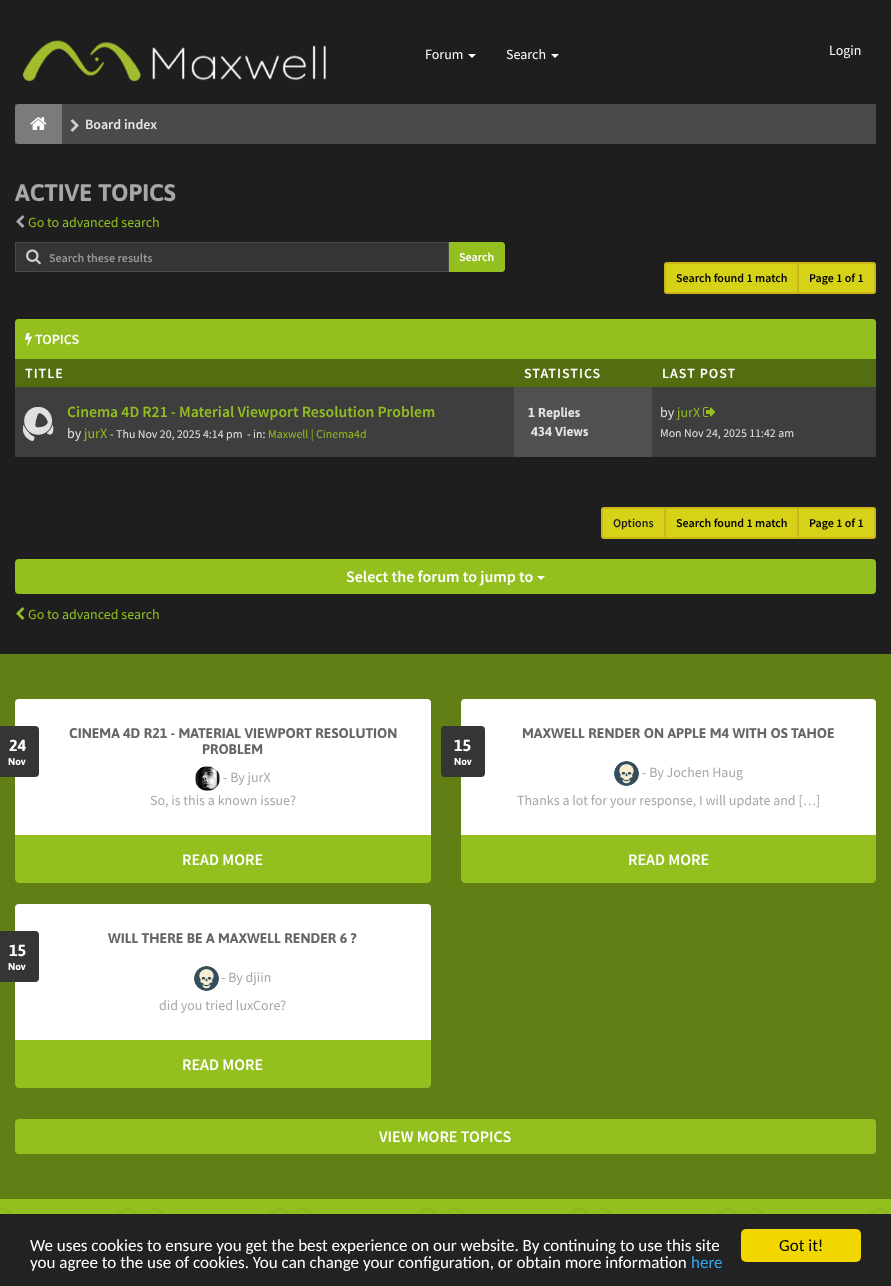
<?xml version="1.0" encoding="UTF-8"?>
<svg xmlns="http://www.w3.org/2000/svg" width="891" height="1286">
    <rect width="100%" height="100%" fill="#1E1E1E"/>
    <image x="23" y="40" width="303" height="42" href="img_01.png"/>
    <text x="425" y="59" font-family="Source Sans Pro" font-size="14" fill="#FFFFFF">Forum</text>
    <path d="M 468 54 H 476 L 472 58 Z" fill="#FFFFFF"/>
    <text x="506" y="59" font-family="Source Sans Pro" font-size="14" fill="#FFFFFF">Search</text>
    <path d="M 551 54 H 559 L 555 58 Z" fill="#FFFFFF"/>
    <text x="829" y="55" font-family="Source Sans Pro" font-size="14" fill="#FFFFFF">Login</text>
    <rect x="15" y="104" width="861" height="40" fill="#4A4A4A"/>
    <path d="M 19 104 H 62 V 144 H 19 C 17 144 15 142 15 140 V 108 C 15 106 17 104 19 104 Z" fill="#7B7B7B"/>
    <image x="30" y="117" width="17" height="13" href="img_02.png"/>
    <image x="70" y="119" width="9" height="13" href="img_03.png"/>
    <text x="85" y="129" font-family="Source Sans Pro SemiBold" font-size="14" font-weight="600" fill="#E8E8E8">Board index</text>
    <text x="15" y="201" font-family="Asap" font-size="24" font-weight="700" fill="#A7A7A7">ACTIVE TOPICS</text>
    <image x="16" y="215" width="9" height="13" href="img_04.png"/>
    <text x="28" y="227" font-family="Source Sans Pro" font-size="14" fill="#93BF1F">Go to advanced search</text>
    <rect x="15.5" y="242.5" width="433" height="29" fill="#353535" stroke="#4A4A4A"/>
    <image x="26" y="249" width="15" height="16" href="img_05.png"/>
    <text x="49" y="262" font-family="Source Sans Pro SemiBold" font-size="12" font-weight="600" fill="#999999">Search these results</text>
    <path d="M 449 242 H 502 C 503.5 242 505 243.5 505 245 V 269 C 505 270.5 503.5 272 502 272 H 449 Z" fill="#93BF1F"/>
    <text x="459" y="261" font-family="Source Sans Pro SemiBold" font-size="12" font-weight="600" fill="#FFFFFF">Search</text>
    <path d="M 667 263 H 798 V 293 H 667 C 666 293 665 292 665 291 V 265 C 665 264 666 263 667 263 Z" fill="#D6D218" stroke="#CCB617" stroke-width="2"/>
    <text x="676" y="282" font-family="Source Sans Pro SemiBold" font-size="12" font-weight="600" fill="#000000">Search found 1 match</text>
    <path d="M 798 263 H 873 C 874 263 875 264 875 265 V 291 C 875 292 874 293 873 293 H 798 Z" fill="#D6D218" stroke="#CCB617" stroke-width="2"/>
    <text x="809" y="282" font-family="Source Sans Pro SemiBold" font-size="12" font-weight="600" fill="#000000">Page 1 of 1</text>
    <path d="M 18 319 H 873 C 874.5 319 876 320.5 876 322 V 359 H 15 V 322 C 15 320.5 16.5 319 18 319 Z" fill="#93BF1F"/>
    <image x="25" y="333" width="7" height="13" href="img_06.png"/>
    <text x="35" y="344" font-family="Source Sans Pro SemiBold" font-size="14" font-weight="600" fill="#FFFFFF">TOPICS</text>
    <rect x="15" y="359" width="861" height="28" fill="#546D11"/>
    <text x="25" y="378" font-family="Source Sans Pro SemiBold" font-size="14" font-weight="600" letter-spacing="1" fill="#FFFFFF">TITLE</text>
    <text x="524" y="378" font-family="Source Sans Pro SemiBold" font-size="14" font-weight="600" letter-spacing="1" fill="#FFFFFF">STATISTICS</text>
    <text x="662" y="378" font-family="Source Sans Pro SemiBold" font-size="14" font-weight="600" letter-spacing="1" fill="#FFFFFF">LAST POST</text>
    <rect x="15" y="387" width="499" height="70" fill="#3E3E3E"/>
    <image x="23" y="407" width="31" height="34" href="img_07.png"/>
    <text x="67" y="417" font-family="Source Sans Pro SemiBold" font-size="15.7" font-weight="600" fill="#93BF1F">Cinema 4D R21 - Material Viewport Resolution Problem</text>
    <text x="67" y="438" font-family="Source Sans Pro" font-size="14" fill="#E2E2E2">by</text>
    <text x="84" y="438" font-family="Source Sans Pro" font-size="14" fill="#93BF1F">jurX</text>
    <text x="110" y="438" font-family="Source Sans Pro" font-size="11.9" fill="#E2E2E2">- Thu Nov 20, 2025 4:14 pm</text>
    <text x="247" y="438" font-family="Source Sans Pro" font-size="11.9" fill="#E2E2E2">- in:</text>
    <text x="268" y="438" font-family="Source Sans Pro" font-size="11.9" fill="#93BF1F">Maxwell | Cinema4d</text>
    <rect x="514" y="387" width="138" height="70" fill="#505050"/>
    <text x="528" y="417" font-family="Asap" font-size="13" font-weight="700" fill="#E2E2E2">1 Replies</text>
    <text x="531" y="436" font-family="Asap" font-size="13" font-weight="700" fill="#E2E2E2">434 Views</text>
    <rect x="652" y="387" width="224" height="70" fill="#3E3E3E"/>
    <text x="660" y="417" font-family="Source Sans Pro" font-size="14" fill="#E2E2E2">by</text>
    <text x="677" y="417" font-family="Source Sans Pro" font-size="14" fill="#93BF1F">jurX</text>
    <image x="703" y="407" width="13" height="10" href="img_08.png"/>
    <text x="660" y="437" font-family="Source Sans Pro" font-size="11.9" fill="#E2E2E2">Mon Nov 24, 2025 11:42 am</text>
    <path d="M 604 508 H 665 V 538 H 604 C 603 538 602 537 602 536 V 510 C 602 509 603 508 604 508 Z" fill="#D6D218" stroke="#CCB617" stroke-width="2"/>
    <text x="613" y="527" font-family="Source Sans Pro SemiBold" font-size="12" font-weight="600" fill="#1F1F1F">Options</text>
    <rect x="665" y="508" width="133" height="30" fill="#D6D218" stroke="#CCB617" stroke-width="2"/>
    <text x="676" y="527" font-family="Source Sans Pro SemiBold" font-size="12" font-weight="600" fill="#000000">Search found 1 match</text>
    <path d="M 798 508 H 873 C 874 508 875 509 875 510 V 536 C 875 537 874 538 873 538 H 798 Z" fill="#D6D218" stroke="#CCB617" stroke-width="2"/>
    <text x="809" y="527" font-family="Source Sans Pro SemiBold" font-size="12" font-weight="600" fill="#000000">Page 1 of 1</text>
    <rect x="15" y="559" width="861" height="35" rx="4" fill="#93BF1F"/>
    <text x="346" y="582" font-family="Source Sans Pro SemiBold" font-size="16" font-weight="600" fill="#FFFFFF">Select the forum to jump to</text>
    <path d="M 537 576 H 545 L 541 580 Z" fill="#FFFFFF"/>
    <image x="16" y="607" width="9" height="13" href="img_09.png"/>
    <text x="28" y="619" font-family="Source Sans Pro" font-size="14" fill="#93BF1F">Go to advanced search</text>
    <rect x="0" y="654" width="891" height="545" fill="#627F15"/>
    <rect x="15" y="699" width="416" height="160" rx="4" fill="#FFFFFF"/>
    <rect x="-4" y="726" width="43" height="51" rx="4" fill="#353535"/>
    <text x="9" y="751" font-family="Asap" font-size="16" font-weight="700" fill="#FFFFFF">24</text>
    <text x="8" y="765" font-family="Asap" font-size="10" font-weight="700" fill="#FFFFFF">Nov</text>
    <text x="69" y="738" font-family="Asap" font-size="14" font-weight="700" fill="#666666">CINEMA 4D R21 - MATERIAL VIEWPORT RESOLUTION</text>
    <text x="202" y="754" font-family="Asap" font-size="14" font-weight="700" fill="#666666">PROBLEM</text>
    <image x="195" y="766" width="25" height="25" href="img_10.png"/>
    <text x="223" y="782" font-family="Source Sans Pro" font-size="14" fill="#A7A7A7">- By jurX</text>
    <text x="150" y="805" font-family="Source Sans Pro" font-size="14" fill="#A7A7A7">So, is this a known issue?</text>
    <path d="M 15 835 H 431 V 879 C 431 881 429 883 427 883 H 19 C 17 883 15 881 15 879 Z" fill="#93BF1F"/>
    <text x="182" y="865" font-family="Source Sans Pro SemiBold" font-size="16" font-weight="600" fill="#FFFFFF">READ MORE</text>
    <rect x="461" y="699" width="415" height="160" rx="4" fill="#FFFFFF"/>
    <rect x="441" y="726" width="44" height="51" rx="4" fill="#353535"/>
    <text x="454" y="751" font-family="Asap" font-size="16" font-weight="700" fill="#FFFFFF">15</text>
    <text x="454" y="765" font-family="Asap" font-size="10" font-weight="700" fill="#FFFFFF">Nov</text>
    <text x="522" y="738" font-family="Asap" font-size="14" font-weight="700" fill="#666666">MAXWELL RENDER ON APPLE M4 WITH OS TAHOE</text>
    <image x="614" y="761" width="25" height="25" href="img_11.png"/>
    <text x="642" y="777" font-family="Source Sans Pro" font-size="14" fill="#A7A7A7">- By Jochen Haug</text>
    <text x="517" y="805" font-family="Source Sans Pro" font-size="14" fill="#A7A7A7">Thanks a lot for your response, I will update and […]</text>
    <path d="M 461 835 H 876 V 879 C 876 881 874 883 872 883 H 465 C 463 883 461 881 461 879 Z" fill="#93BF1F"/>
    <text x="628" y="865" font-family="Source Sans Pro SemiBold" font-size="16" font-weight="600" fill="#FFFFFF">READ MORE</text>
    <rect x="15" y="904" width="416" height="160" rx="4" fill="#FFFFFF"/>
    <rect x="-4" y="931" width="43" height="51" rx="4" fill="#353535"/>
    <text x="9" y="956" font-family="Asap" font-size="16" font-weight="700" fill="#FFFFFF">15</text>
    <text x="8" y="970" font-family="Asap" font-size="10" font-weight="700" fill="#FFFFFF">Nov</text>
    <text x="108" y="943" font-family="Asap" font-size="14" font-weight="700" fill="#666666">WILL THERE BE A MAXWELL RENDER 6 ?</text>
    <image x="194" y="966" width="25" height="25" href="img_11.png"/>
    <text x="221" y="982" font-family="Source Sans Pro" font-size="14" fill="#A7A7A7">- By djiin</text>
    <text x="159" y="1010" font-family="Source Sans Pro" font-size="14" fill="#A7A7A7">did you tried luxCore?</text>
    <path d="M 15 1040 H 431 V 1084 C 431 1086 429 1088 427 1088 H 19 C 17 1088 15 1086 15 1084 Z" fill="#93BF1F"/>
    <text x="182" y="1070" font-family="Source Sans Pro SemiBold" font-size="16" font-weight="600" fill="#FFFFFF">READ MORE</text>
    <rect x="15" y="1119" width="861" height="35" rx="4" fill="#93BF1F"/>
    <text x="379" y="1142" font-family="Source Sans Pro SemiBold" font-size="16" font-weight="600" fill="#FFFFFF">VIEW MORE TOPICS</text>
    <rect x="0" y="1199" width="891" height="15" fill="#93BF1F"/>
    <image x="0" y="1207" width="889" height="7" href="img_12.png"/>
    <rect x="0" y="1214" width="891" height="72" fill="#222222"/>
    <text font-family="Carlito" font-size="17" fill="#FFFFFF">
        <tspan x="30" y="1251">We uses cookies to ensure you get the best experience on our website. By continuing to use this site</tspan>
        <tspan x="30" y="1268">you agree to the use of cookies. You can change your configuration, or obtain more information</tspan>
    </text>
    <text x="691" y="1268" font-family="Carlito" font-size="17" fill="#31A8F0">here</text>
    <rect x="741" y="1229" width="120" height="33" rx="5" fill="#F1D600"/>
    <text x="779" y="1251" font-family="Carlito" font-size="17" fill="#000000">Got it!</text>
</svg>
